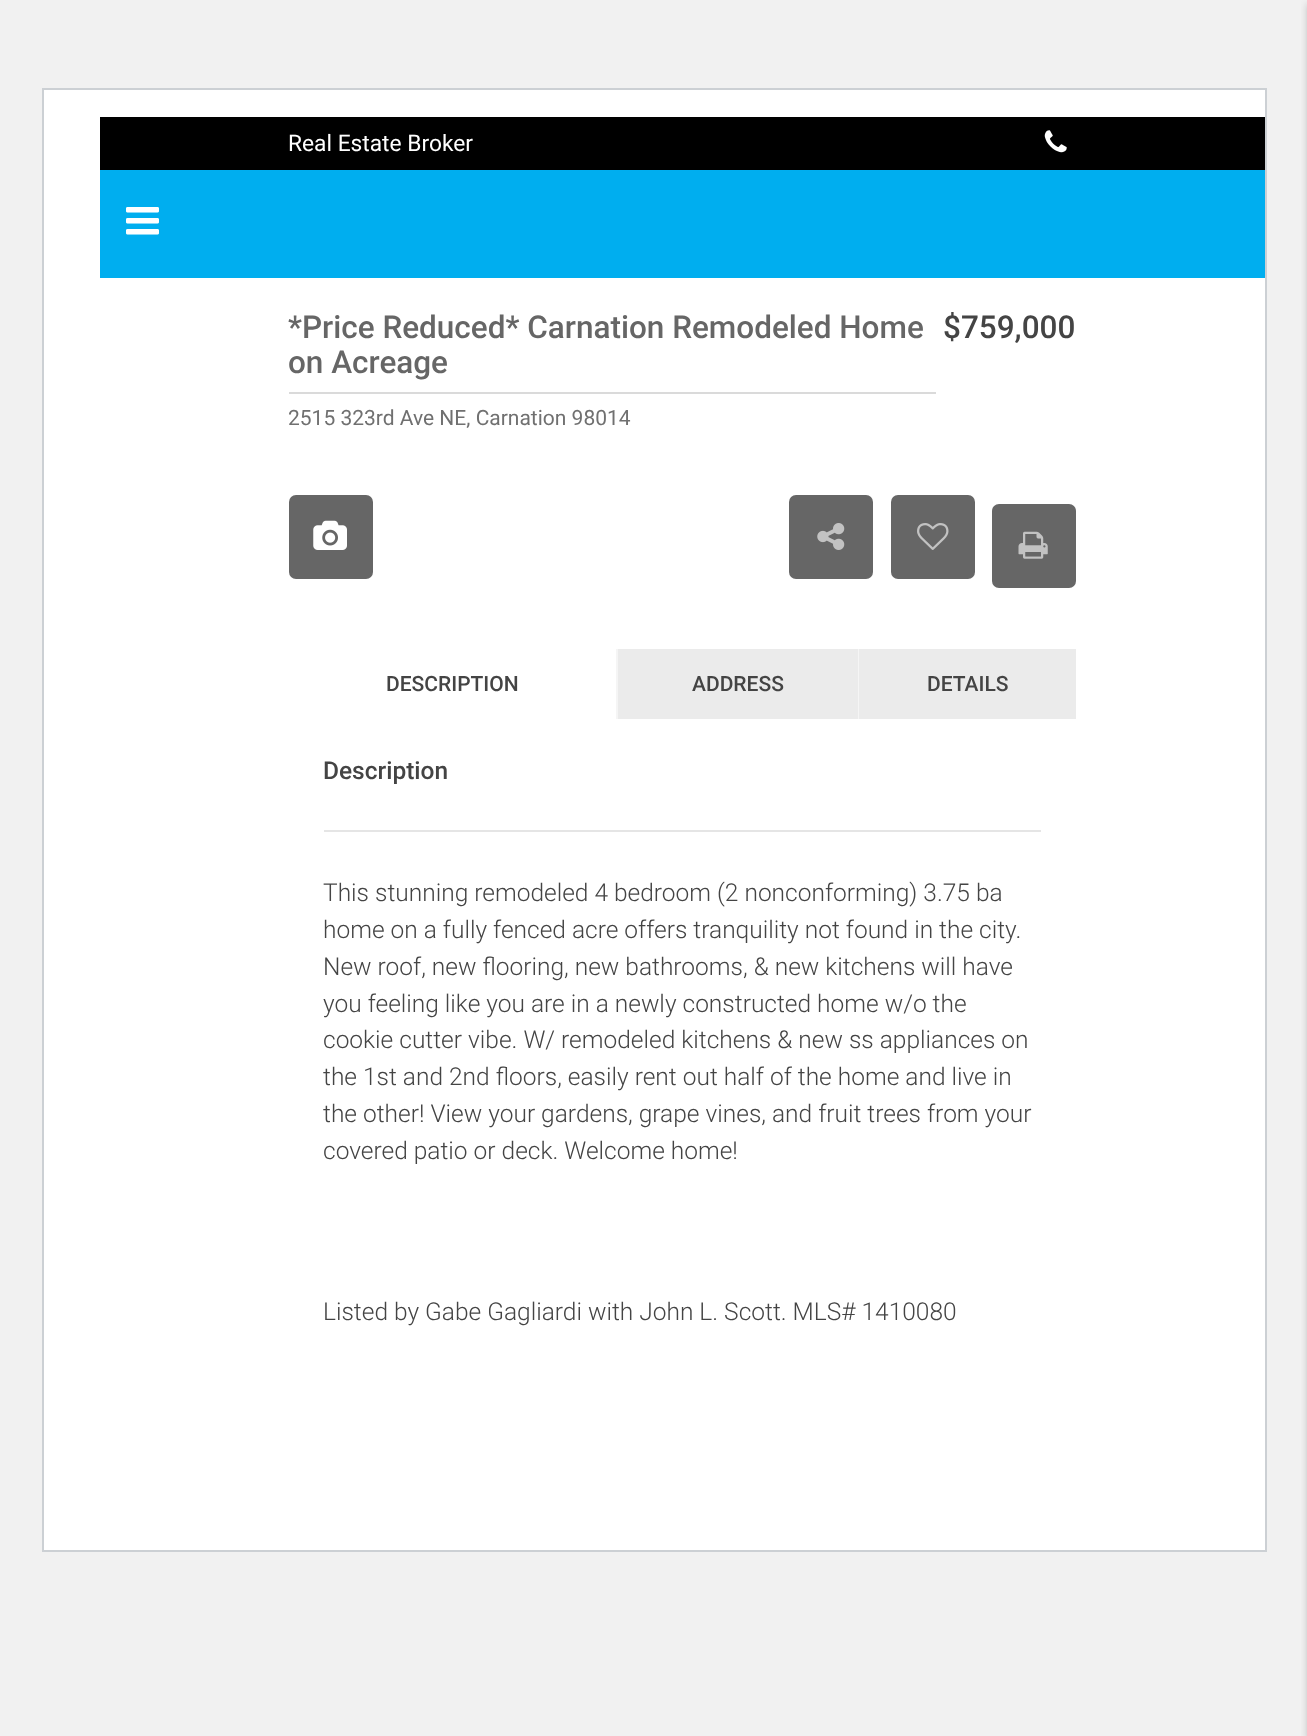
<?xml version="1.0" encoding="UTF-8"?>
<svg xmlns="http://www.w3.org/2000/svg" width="1307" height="1736">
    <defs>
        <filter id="blur1" x="-50%" y="-200%" width="200%" height="500%"><feGaussianBlur stdDeviation="3.5"/></filter>
    </defs>
    <rect width="100%" height="100%" fill="#F1F1F1"/>
    <rect x="43" y="89" width="1223" height="1462" fill="#FFFFFF" stroke="#CCD0D4" stroke-width="2"/>
    <rect x="100" y="117" width="1165" height="53" fill="#000000"/>
    <text x="288" y="151" font-family="Roboto" font-size="22.75" fill="#FFFFFF">Real Estate Broker</text>
    <image x="1044" y="130" width="23" height="23" href="img_01.png"/>
    <rect x="100" y="170" width="1165" height="108" fill="#00AEEF"/>
    <image x="126" y="207" width="33" height="28" href="img_02.png"/>
    <rect x="289" y="392" width="647" height="2" fill="#DADADA"/>
    <text font-family="Roboto" font-size="31.5" font-weight="500" fill="#666666">
        <tspan x="288" y="338">*Price Reduced* Carnation Remodeled Home</tspan>
        <tspan x="288" y="373">on Acreage</tspan>
    </text>
    <text x="288" y="425" font-family="Roboto" font-size="21" fill="#707070">2515 323rd Ave NE, Carnation 98014</text>
    <text x="943" y="338" font-family="Roboto" font-size="31.5" font-weight="500" fill="#444444">$759,000</text>
    <rect x="1307" y="4" width="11" height="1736" fill="#000000" fill-opacity="0.2" filter="url(#blur1)"/>
    <rect x="289" y="495" width="84" height="84" rx="7" fill="#666666"/>
    <image x="313" y="520" width="34" height="30" href="img_03.png"/>
    <rect x="789" y="495" width="84" height="84" rx="7" fill="#666666"/>
    <image x="817" y="523" width="28" height="27" href="img_04.png"/>
    <rect x="891" y="495" width="84" height="84" rx="7" fill="#666666"/>
    <image x="917" y="523" width="32" height="27" href="img_05.png"/>
    <rect x="992" y="504" width="84" height="84" rx="7" fill="#666666"/>
    <image x="1018" y="531" width="30" height="28" href="img_06.png"/>
    <rect x="616" y="649" width="2" height="70" fill="#F5F5F5"/>
    <text x="386" y="691" font-family="Roboto" font-size="21" font-weight="500" fill="#444444">DESCRIPTION</text>
    <rect x="618" y="649" width="240" height="70" fill="#EBEBEB"/>
    <rect x="858" y="649" width="1" height="70" fill="#F5F5F5"/>
    <text x="692" y="691" font-family="Roboto" font-size="21" font-weight="500" fill="#444444">ADDRESS</text>
    <rect x="859" y="649" width="217" height="70" fill="#EBEBEB"/>
    <text x="927" y="691" font-family="Roboto" font-size="21" font-weight="500" fill="#444444">DETAILS</text>
    <rect x="324" y="830" width="717" height="2" fill="#E5E5E5"/>
    <text x="323" y="779" font-family="Roboto" font-size="24.5" font-weight="500" fill="#444444">Description</text>
    <text font-family="Roboto" font-size="24.5" font-weight="300" fill="#444444">
        <tspan x="323" y="901">This stunning remodeled 4 bedroom (2 nonconforming) 3.75 ba</tspan>
        <tspan x="323" y="938">home on a fully fenced acre offers tranquility not found in the city.</tspan>
        <tspan x="323" y="975">New roof, new flooring, new bathrooms, &amp; new kitchens will have</tspan>
        <tspan x="323" y="1012">you feeling like you are in a newly constructed home w/o the</tspan>
        <tspan x="323" y="1048">cookie cutter vibe. W/ remodeled kitchens &amp; new ss appliances on</tspan>
        <tspan x="323" y="1085">the 1st and 2nd floors, easily rent out half of the home and live in</tspan>
        <tspan x="323" y="1122">the other! View your gardens, grape vines, and fruit trees from your</tspan>
        <tspan x="323" y="1159">covered patio or deck. Welcome home!</tspan>
    </text>
    <text x="323" y="1320" font-family="Roboto" font-size="24.5" font-weight="300" fill="#444444">Listed by Gabe Gagliardi with John L. Scott. MLS# 1410080</text>
</svg>
